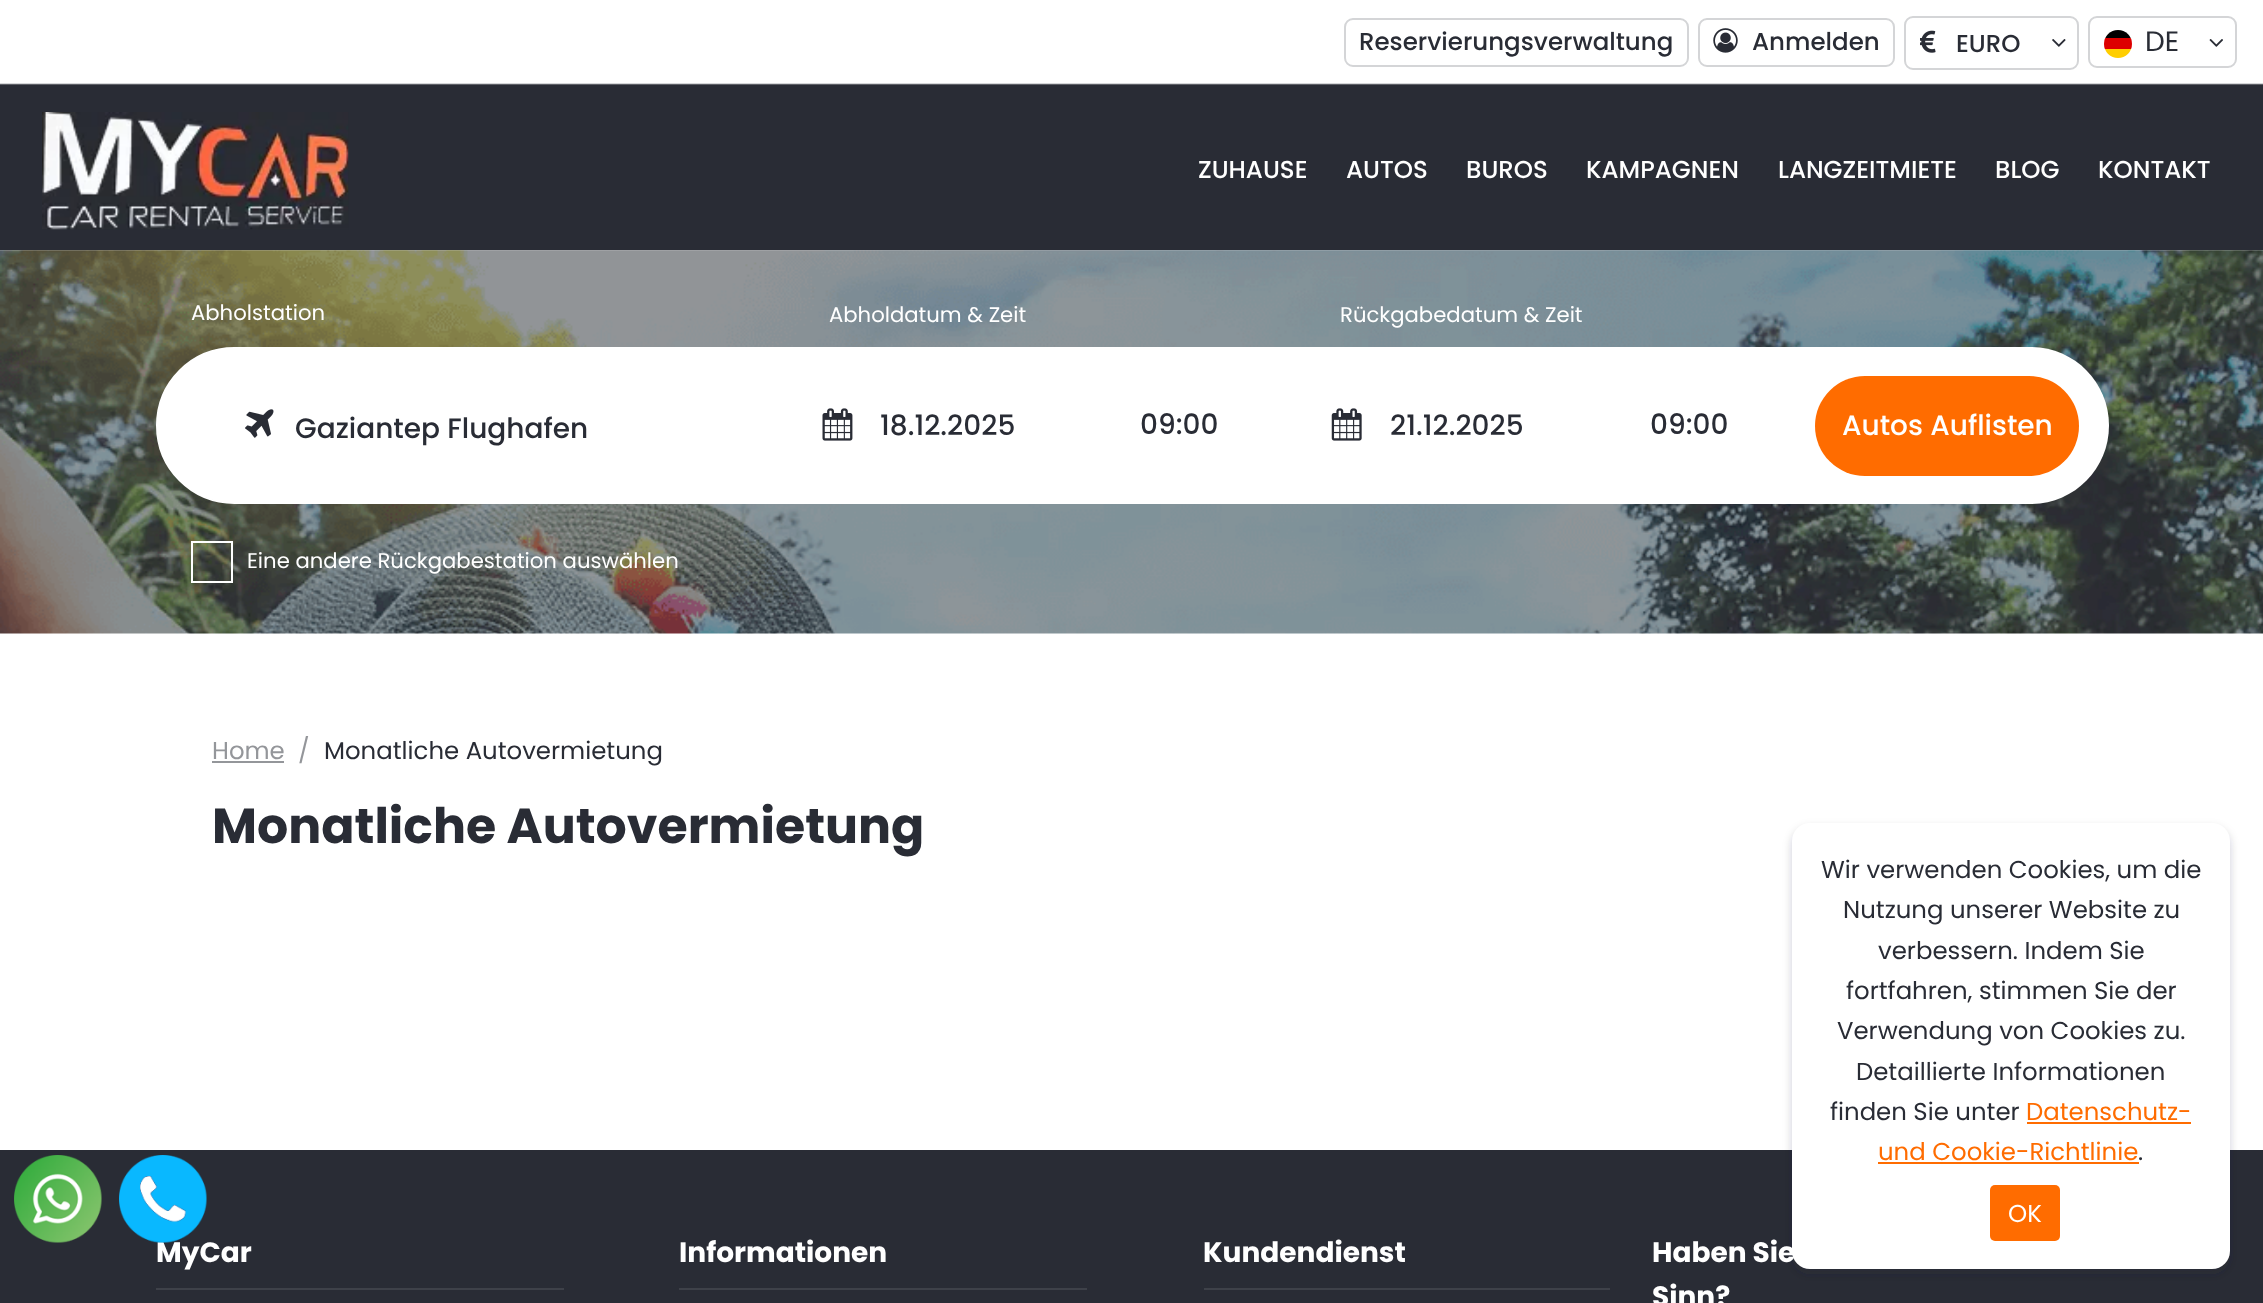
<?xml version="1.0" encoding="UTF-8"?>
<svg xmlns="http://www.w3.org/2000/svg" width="2263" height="1303">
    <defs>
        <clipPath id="clip1"><rect x="2104" y="30" width="28" height="28" rx="14"/></clipPath>
        <filter id="blur1" x="-50%" y="-200%" width="200%" height="500%"><feGaussianBlur stdDeviation="5"/></filter>
    </defs>
    <rect width="100%" height="100%" fill="#FFFFFF"/>
    <image x="0" y="83" width="2263" height="168" href="img_01.png"/>
    <rect x="1345" y="19" width="343" height="47" rx="8" fill="none" stroke="#D4D5D7" stroke-width="2"/>
    <text x="1359" y="50" font-family="Poppins" font-size="24.5" font-weight="500" fill="#292C35">Reservierungsverwaltung</text>
    <rect x="1699" y="19" width="195" height="47" rx="8" fill="none" stroke="#D4D5D7" stroke-width="2"/>
    <image x="1713" y="28" width="25" height="25" href="img_02.png"/>
    <text x="1752" y="50" font-family="Poppins" font-size="24.5" font-weight="500" fill="#292C35">Anmelden</text>
    <rect x="1905" y="17" width="173" height="52" rx="8" fill="none" stroke="#D4D5D7" stroke-width="2"/>
    <image x="1920" y="30" width="16" height="23" href="img_03.png"/>
    <text x="1956" y="52" font-family="Poppins" font-size="24.5" font-weight="500" fill="#292C35">EURO</text>
    <image x="2052" y="39" width="14" height="8" href="img_04.png"/>
    <rect x="2089" y="17" width="147" height="50" rx="8" fill="none" stroke="#D4D5D7" stroke-width="2"/>
    <g clip-path="url(#clip1)">
        <rect x="2105" y="49" width="26" height="9" fill="#FFCE00"/>
        <rect x="2104" y="30" width="28" height="8" fill="#000000"/>
        <rect x="2104" y="38" width="28" height="11" fill="#DD0000"/>
    </g>
    <text x="2145" y="51" font-family="Poppins" font-size="28" fill="#292C35">DE</text>
    <image x="2209" y="39" width="14" height="8" href="img_05.png"/>
    <image x="42" y="112" width="307" height="118" href="img_06.png"/>
    <text x="1198" y="178" font-family="Poppins" font-size="24.5" font-weight="500" fill="#FFFFFF">ZUHAUSE</text>
    <text x="1346" y="178" font-family="Poppins" font-size="24.5" font-weight="500" fill="#FFFFFF">AUTOS</text>
    <text x="1466" y="178" font-family="Poppins" font-size="24.5" font-weight="500" fill="#FFFFFF">BUROS</text>
    <text x="1586" y="178" font-family="Poppins" font-size="24.5" font-weight="500" fill="#FFFFFF">KAMPAGNEN</text>
    <text x="1778" y="178" font-family="Poppins" font-size="24.5" font-weight="500" fill="#FFFFFF">LANGZEITMIETE</text>
    <text x="1995" y="178" font-family="Poppins" font-size="24.5" font-weight="500" fill="#FFFFFF">BLOG</text>
    <text x="2098" y="178" font-family="Poppins" font-size="24.5" font-weight="500" fill="#FFFFFF">KONTAKT</text>
    <image x="0" y="250" width="2263" height="384" href="img_07.png"/>
    <text x="191" y="320" font-family="Poppins" font-size="21.2" fill="#FFFFFF">Abholstation</text>
    <path d="M 234.5 348 H 794 V 503 H 234.5 C 191.5 503 157 468.5 157 425.5 C 157 382.5 191.5 348 234.5 348 Z" fill="#FFFFFF" stroke="#FFFFFF" stroke-width="2"/>
    <image x="245" y="409" width="29" height="29" href="img_08.png"/>
    <text x="295" y="438" font-family="Poppins" font-size="28" font-weight="500" fill="#292C35">Gaziantep Flughafen</text>
    <text x="829" y="322" font-family="Poppins" font-size="21.2" fill="#FFFFFF">Abholdatum &amp; Zeit</text>
    <rect x="795" y="347" width="1020" height="157" fill="#FFFFFF"/>
    <image x="822" y="408" width="31" height="33" href="img_09.png"/>
    <text x="880" y="435" font-family="Poppins" font-size="28" font-weight="500" fill="#292C35">18.12.2025</text>
    <text x="1140" y="434" font-family="Poppins" font-size="28" font-weight="500" fill="#292C35">09:00</text>
    <text x="1340" y="322" font-family="Poppins" font-size="21.2" fill="#FFFFFF">Rückgabedatum &amp; Zeit</text>
    <image x="1331" y="408" width="31" height="33" href="img_10.png"/>
    <text x="1390" y="435" font-family="Poppins" font-size="28" font-weight="500" fill="#292C35">21.12.2025</text>
    <text x="1650" y="434" font-family="Poppins" font-size="28" font-weight="500" fill="#292C35">09:00</text>
    <path d="M 1815 347 H 2030.5 C 2074 347 2109 382 2109 425.5 C 2109 469 2074 504 2030.5 504 H 1815 Z" fill="#FFFFFF"/>
    <rect x="1815" y="376" width="264" height="100" rx="50" fill="#FF6C00"/>
    <text x="1842" y="435" font-family="Poppins" font-size="28" font-weight="500" fill="#FFFFFF">Autos Auflisten</text>
    <rect x="192" y="542" width="40" height="40" fill="none" stroke="#FFFFFF" stroke-width="2"/>
    <text x="247" y="568" font-family="Poppins" font-size="21.2" fill="#FFFFFF">Eine andere Rückgabestation auswählen</text>
    <text x="212" y="759" font-family="Poppins" font-size="24.4" fill="#94969A">Home</text>
    <rect x="212" y="761" width="72" height="2" fill="#94969A"/>
    <text x="298" y="759" font-family="Poppins" font-size="24.4" fill="#94969A">/</text>
    <text x="324" y="759" font-family="Poppins" font-size="24.4" fill="#292C35">Monatliche Autovermietung</text>
    <text x="212" y="843" font-family="Poppins" font-size="49" font-weight="700" fill="#292C35">Monatliche Autovermietung</text>
    <rect x="0" y="1150" width="2263" height="153" fill="#292C35"/>
    <image x="14" y="1155" width="88" height="88" href="img_11.png"/>
    <text x="156" y="1262" font-family="Poppins" font-size="28" font-weight="700" fill="#FFFFFF">MyCar</text>
    <image x="119" y="1155" width="88" height="88" href="img_12.png"/>
    <rect x="1792" y="828" width="438" height="446" rx="18" fill="#292C35" fill-opacity="0.2" filter="url(#blur1)"/>
    <rect x="1792" y="823" width="438" height="446" rx="18" fill="#FFFFFF"/>
    <text x="1821" y="878" font-family="Poppins" font-size="24.4" fill="#292C35">Wir verwenden Cookies, um die</text>
    <text x="1843" y="918" font-family="Poppins" font-size="24.4" fill="#292C35">Nutzung unserer Website zu</text>
    <text x="1878" y="959" font-family="Poppins" font-size="24.4" fill="#292C35">verbessern. Indem Sie</text>
    <text x="1846" y="999" font-family="Poppins" font-size="24.4" fill="#292C35">fortfahren, stimmen Sie der</text>
    <text x="1837" y="1039" font-family="Poppins" font-size="24.4" fill="#292C35">Verwendung von Cookies zu.</text>
    <text x="1856" y="1080" font-family="Poppins" font-size="24.4" fill="#292C35">Detaillierte Informationen</text>
    <text x="1830" y="1120" font-family="Poppins" font-size="24.4" fill="#292C35">finden Sie unter</text>
    <text x="2026" y="1120" font-family="Poppins" font-size="24.4" fill="#FF6C00">Datenschutz-</text>
    <rect x="2027" y="1122" width="164" height="2" fill="#FF6C00"/>
    <text x="1878" y="1160" font-family="Poppins" font-size="24.4" fill="#FF6C00">und Cookie-Richtlinie</text>
    <rect x="1878" y="1162" width="261" height="2" fill="#FF6C00"/>
    <text x="2138" y="1160" font-family="Poppins" font-size="24.4" fill="#292C35">.</text>
    <rect x="1990" y="1185" width="70" height="56" rx="5" fill="#FF6C00"/>
    <text x="2008" y="1222" font-family="Poppins" font-size="24.4" fill="#FFFFFF">OK</text>
    <rect x="156" y="1288" width="408" height="2" fill="#3E4149"/>
    <rect x="679" y="1288" width="408" height="2" fill="#3E4149"/>
    <text x="679" y="1262" font-family="Poppins" font-size="28" font-weight="700" fill="#FFFFFF">Informationen</text>
    <rect x="1204" y="1288" width="406" height="2" fill="#3E4149"/>
    <text x="1203" y="1262" font-family="Poppins" font-size="28" font-weight="700" fill="#FFFFFF">Kundendienst</text>
    <text font-family="Poppins" font-size="28" font-weight="700" fill="#FFFFFF">
        <tspan x="1652" y="1262">Haben Sie</tspan>
        <tspan x="1652" y="1306">Sinn?</tspan>
    </text>
</svg>
